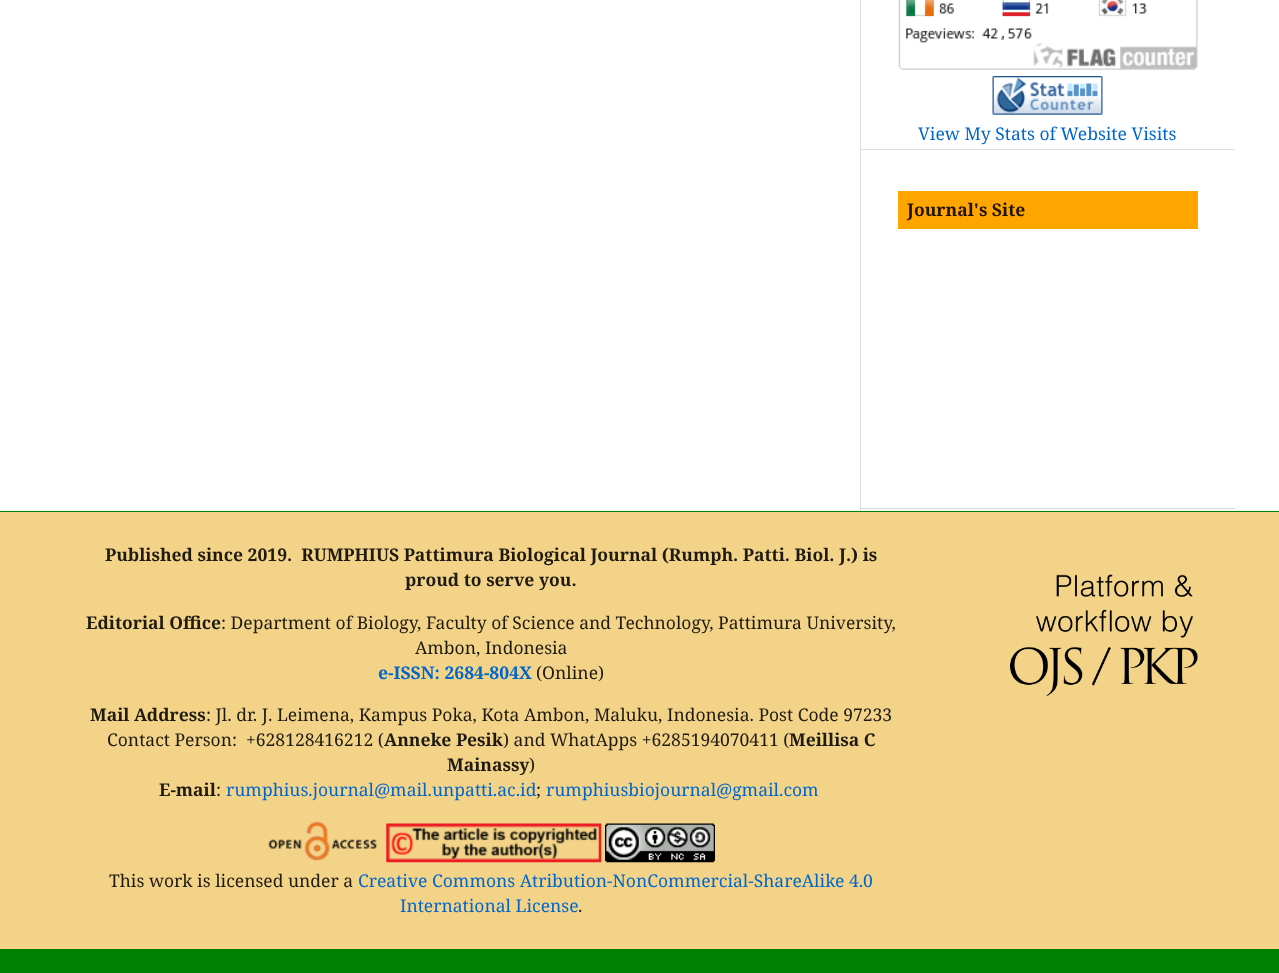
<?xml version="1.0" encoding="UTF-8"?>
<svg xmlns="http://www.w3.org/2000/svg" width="1279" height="973">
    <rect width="100%" height="100%" fill="#FFFFFF"/>
    <rect x="860" y="0" width="1" height="511" fill="#DDDDDD"/>
    <rect x="860" y="149" width="375" height="1" fill="#DDDDDD"/>
    <image x="898" y="0" width="300" height="70" href="img_01.png"/>
    <image x="992" y="76" width="111" height="39" href="img_02.png"/>
    <text x="918" y="140" font-family="Noto Serif" font-size="17.5" fill="#0066CC">View My Stats of Website Visits</text>
    <rect x="860" y="508" width="375" height="1" fill="#DDDDDD"/>
    <rect x="898" y="191" width="300" height="38" fill="#FFA500"/>
    <text x="907" y="216" font-family="Noto Serif" font-size="17.5" font-weight="700" fill="#211500">Journal's Site</text>
    <rect x="0" y="512" width="1279" height="437" fill="#F2D388"/>
    <rect x="0" y="511" width="1279" height="1" fill="#008000"/>
    <rect x="0" y="949" width="1279" height="24" fill="#008000"/>
    <text x="105" y="561" font-family="Noto Serif" font-size="17.5" font-weight="700" fill="#1F1B12" xml:space="preserve">Published since 2019.  RUMPHIUS Pattimura Biological Journal (Rumph. Patti. Biol. J.) is</text>
    <text x="405" y="586" font-family="Noto Serif" font-size="17.5" font-weight="700" fill="#1F1B12">proud to serve you.</text>
    <text x="86" y="629" font-family="Noto Serif" font-size="17.5" font-weight="700" fill="#1F1B12">Editorial Office</text>
    <text x="221" y="629" font-family="Noto Serif" font-size="17.5" fill="#1F1B12">: Department of Biology, Faculty of Science and Technology, Pattimura University,</text>
    <text x="415" y="654" font-family="Noto Serif" font-size="17.5" fill="#1F1B12">Ambon, Indonesia</text>
    <text x="378" y="679" font-family="Noto Serif" font-size="17.5" font-weight="700" fill="#0066CC">e-ISSN: 2684-804X</text>
    <text x="536" y="679" font-family="Noto Serif" font-size="17.5" fill="#1F1B12">(Online)</text>
    <text x="90" y="721" font-family="Noto Serif" font-size="17.5" font-weight="700" fill="#1F1B12">Mail Address</text>
    <text x="206" y="721" font-family="Noto Serif" font-size="17.5" fill="#1F1B12">: Jl. dr. J. Leimena, Kampus Poka, Kota Ambon, Maluku, Indonesia. Post Code 97233</text>
    <text x="107" y="746" font-family="Noto Serif" font-size="17.5" fill="#1F1B12" xml:space="preserve">Contact Person:  +628128416212 (</text>
    <text x="384" y="746" font-family="Noto Serif" font-size="17.5" font-weight="700" fill="#1F1B12">Anneke Pesik</text>
    <text x="503" y="746" font-family="Noto Serif" font-size="17.5" fill="#1F1B12">) and WhatApps +6285194070411 (</text>
    <text x="789" y="746" font-family="Noto Serif" font-size="17.5" font-weight="700" fill="#1F1B12">Meillisa C</text>
    <text x="447" y="771" font-family="Noto Serif" font-size="17.5" font-weight="700" fill="#1F1B12">Mainassy</text>
    <text x="529" y="771" font-family="Noto Serif" font-size="17.5" fill="#1F1B12">)</text>
    <text x="159" y="796" font-family="Noto Serif" font-size="17.5" font-weight="700" fill="#1F1B12">E-mail</text>
    <text x="216" y="796" font-family="Noto Serif" font-size="17.5" fill="#1F1B12">:</text>
    <text x="226" y="796" font-family="Noto Serif" font-size="17.5" fill="#0066CC">rumphius.journal@mail.unpatti.ac.id</text>
    <text x="536" y="796" font-family="Noto Serif" font-size="17.5" fill="#1F1B12">;</text>
    <text x="546" y="796" font-family="Noto Serif" font-size="17.5" fill="#0066CC">rumphiusbiojournal@gmail.com</text>
    <image x="268" y="821" width="109" height="40" href="img_03.png"/>
    <image x="386" y="823" width="216" height="40" href="img_04.png"/>
    <image x="605" y="823" width="110" height="40" href="img_05.png"/>
    <text x="109" y="887" font-family="Noto Serif" font-size="17.5" fill="#1F1B12">This work is licensed under a</text>
    <text x="358" y="887" font-family="Noto Serif" font-size="17.5" fill="#0066CC">Creative Commons Atribution-NonCommercial-ShareAlike 4.0</text>
    <text x="400" y="912" font-family="Noto Serif" font-size="17.5" fill="#0066CC">International License</text>
    <text x="578" y="912" font-family="Noto Serif" font-size="17.5" fill="#1F1B12">.</text>
    <image x="1010" y="574" width="188" height="122" href="img_06.png"/>
</svg>
